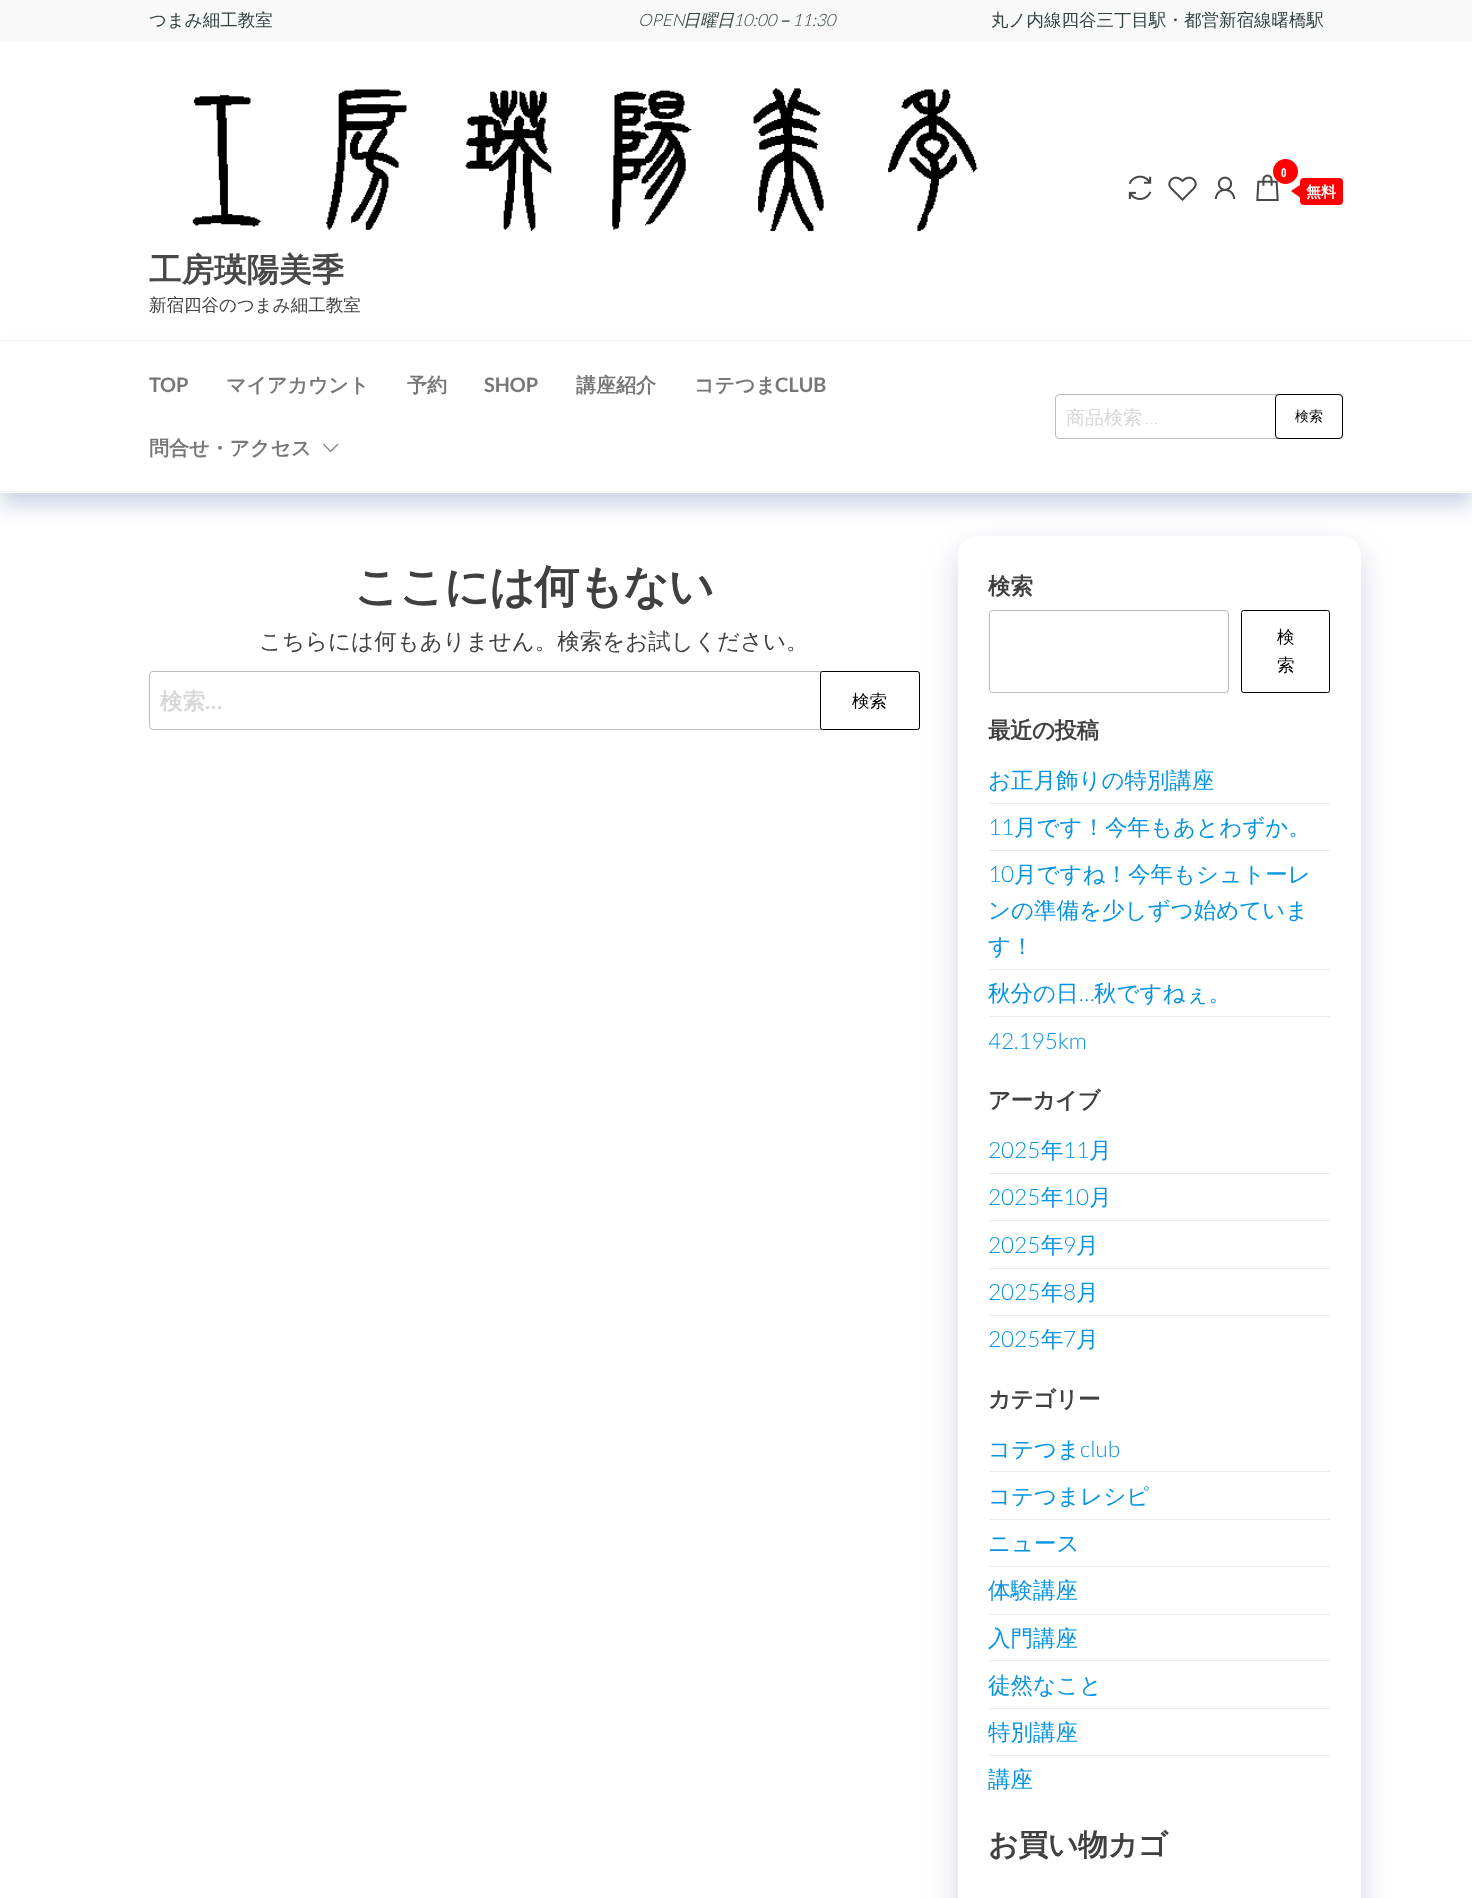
<?xml version="1.0" encoding="UTF-8"?>
<svg xmlns="http://www.w3.org/2000/svg" width="1472" height="1898">
    <defs>
        <filter id="blur1" x="-50%" y="-200%" width="200%" height="500%"><feGaussianBlur stdDeviation="9.5"/></filter>
        <clipPath id="clip1"><path d="M 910 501 H 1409 V 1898 H 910 Z M 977 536 H 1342 C 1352.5 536 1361 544.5 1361 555 V 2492 C 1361 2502.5 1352.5 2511 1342 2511 H 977 C 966.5 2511 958 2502.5 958 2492 V 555 C 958 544.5 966.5 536 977 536 Z" clip-rule="evenodd"/></clipPath>
        <filter id="blur2" x="-50%" y="-200%" width="200%" height="500%"><feGaussianBlur stdDeviation="15.5"/></filter>
    </defs>
    <rect width="100%" height="100%" fill="#FFFFFF"/>
    <rect x="0" y="0" width="1472" height="40" fill="#F9F9F9"/>
    <rect x="0" y="40" width="1472" height="1" fill="#F6F6F6"/>
    <text x="149" y="26" font-family="WenQuanYi Zen Hei" font-size="17.5" font-weight="500" fill="#334142">つまみ細工教室</text>
    <text x="638" y="26" font-family="Lato" font-size="17" font-weight="300" font-style="italic" fill="#334142">OPEN</text>
    <text x="683" y="26" font-family="WenQuanYi Zen Hei" font-size="17" font-weight="500" font-style="italic" fill="#334142">日曜日</text>
    <text x="733" y="26" font-family="Lato" font-size="17" font-weight="300" font-style="italic" fill="#334142">10:00</text>
    <text x="776" y="26" font-family="WenQuanYi Zen Hei" font-size="17" font-weight="500" font-style="italic" fill="#334142">－</text>
    <text x="792" y="26" font-family="Lato" font-size="17" font-weight="300" font-style="italic" fill="#334142">11:30</text>
    <text x="991" y="26" font-family="WenQuanYi Zen Hei" font-size="17.5" font-weight="500" fill="#334142">丸ノ内線四谷三丁目駅・都営新宿線曙橋駅</text>
    <rect x="0" y="340" width="1472" height="1" fill="#F6F6F6"/>
    <image x="1128" y="175" width="24" height="25" href="img_01.png"/>
    <image x="1168" y="176" width="29" height="25" href="img_02.png"/>
    <image x="1214" y="176" width="22" height="23" href="img_03.png"/>
    <image x="1256" y="174" width="23" height="27" href="img_04.png"/>
    <circle cx="1285.5" cy="171.5" r="12.5" fill="#FF0000"/>
    <text x="1281" y="177" font-family="Open Sans Condensed" font-size="12" font-weight="700" fill="#FFFFFF">0</text>
    <rect x="1300" y="178" width="43" height="27" rx="4" fill="#FF0000"/>
    <path d="M 1300 185 V 197.5 L 1291 191 Z" fill="#FF0000"/>
    <text x="1306" y="197" font-family="WenQuanYi Zen Hei" font-size="15" font-weight="700" fill="#FFFFFF">無料</text>
    <image x="192" y="88" width="786" height="144" href="img_05.png"/>
    <text x="149" y="281" font-family="WenQuanYi Zen Hei" font-size="32.5" font-weight="700" fill="#484848">工房瑛陽美季</text>
    <text x="149" y="311" font-family="WenQuanYi Zen Hei" font-size="17.5" font-weight="500" fill="#404040">新宿四谷のつまみ細工教室</text>
    <rect x="0" y="354" width="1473" height="151" fill="#192D78" fill-opacity="0.2" filter="url(#blur1)"/>
    <rect x="0" y="341" width="1472" height="152" fill="#FFFFFF"/>
    <rect x="0" y="491" width="1472" height="1" fill="#F6F6F6"/>
    <text x="149" y="392" font-family="Lato" font-size="20" font-weight="700" fill="#777777">TOP</text>
    <text x="226" y="392" font-family="WenQuanYi Zen Hei" font-size="20" font-weight="700" fill="#777777">マイアカウント</text>
    <text x="407" y="392" font-family="WenQuanYi Zen Hei" font-size="20" font-weight="700" fill="#777777">予約</text>
    <text x="484" y="392" font-family="Lato" font-size="20" font-weight="700" fill="#777777">SHOP</text>
    <text x="576" y="392" font-family="WenQuanYi Zen Hei" font-size="20" font-weight="700" fill="#777777">講座紹介</text>
    <text x="694" y="392" font-family="WenQuanYi Zen Hei" font-size="20" font-weight="700" fill="#777777">コテつま</text>
    <text x="775" y="392" font-family="Lato" font-size="20" font-weight="700" fill="#777777">CLUB</text>
    <text x="149" y="455" font-family="WenQuanYi Zen Hei" font-size="20" font-weight="700" fill="#777777">問合せ・アクセス</text>
    <image x="323" y="443" width="16" height="10" href="img_06.png"/>
    <rect x="1055.5" y="394.5" width="287" height="44" rx="3.5" fill="none" stroke="#BBBBBB"/>
    <text x="1066" y="424" font-family="WenQuanYi Zen Hei" font-size="19" font-weight="500" fill="#D7D7D7">商品検索</text>
    <text x="1145" y="424" font-family="Lato" font-size="19" font-weight="300" fill="#D7D7D7">…</text>
    <rect x="1275.5" y="394.5" width="67" height="44" rx="3.5" fill="none" stroke="#000000"/>
    <text x="1295" y="421" font-family="WenQuanYi Zen Hei" font-size="14" font-weight="500" fill="#000000">検索</text>
    <text x="354" y="602" font-family="WenQuanYi Zen Hei" font-size="45" font-weight="700" letter-spacing="-1" fill="#404040">ここには何もない</text>
    <text x="259" y="649" font-family="WenQuanYi Zen Hei" font-size="22.5" font-weight="500" fill="#404040">こちらには何もありません。検索をお試しください。</text>
    <rect x="149.5" y="671.5" width="770" height="58" rx="3.5" fill="none" stroke="#BBBBBB"/>
    <text x="160" y="709" font-family="WenQuanYi Zen Hei" font-size="22.5" font-weight="700" fill="#D7D7D7">検索</text>
    <text x="205" y="709" font-family="Lato" font-size="22.5" font-weight="700" fill="#D7D7D7">…</text>
    <rect x="820.5" y="671.5" width="99" height="58" rx="2" fill="none" stroke="#000000"/>
    <text x="852" y="707" font-family="WenQuanYi Zen Hei" font-size="17.5" font-weight="500" fill="#000000">検索</text>
    <g clip-path="url(#clip1)">
        <rect x="958" y="549" width="403" height="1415" rx="19" fill="#1C2D71" fill-opacity="0.17" filter="url(#blur2)"/>
    </g>
    <text x="988" y="594" font-family="WenQuanYi Zen Hei" font-size="22.5" font-weight="700" fill="#404040">検索</text>
    <rect x="989.5" y="610.5" width="239" height="82" rx="3.5" fill="none" stroke="#BBBBBB"/>
    <rect x="1241.5" y="610.5" width="88" height="82" rx="2" fill="none" stroke="#000000"/>
    <text font-family="WenQuanYi Zen Hei" font-size="17.5" font-weight="500" fill="#000000">
        <tspan x="1277" y="643">検</tspan>
        <tspan x="1277" y="671">索</tspan>
    </text>
    <text x="988" y="738" font-family="WenQuanYi Zen Hei" font-size="22.5" font-weight="700" letter-spacing="-0.5" fill="#404040">最近の投稿</text>
    <rect x="989" y="803" width="341" height="1" fill="#EBEBEB"/>
    <text x="988" y="788" font-family="WenQuanYi Zen Hei" font-size="22.5" font-weight="500" fill="#0693E3">お正月飾りの特別講座</text>
    <rect x="989" y="850" width="341" height="1" fill="#EBEBEB"/>
    <text x="988" y="835" font-family="Lato" font-size="22.5" font-weight="300" fill="#0693E3">11</text>
    <text x="1014" y="835" font-family="WenQuanYi Zen Hei" font-size="22.5" font-weight="500" fill="#0693E3">月です！今年もあとわずか。</text>
    <rect x="989" y="969" width="341" height="1" fill="#EBEBEB"/>
    <text x="988" y="882" font-family="Lato" font-size="22.5" font-weight="300" fill="#0693E3">10</text>
    <text x="1014" y="882" font-family="WenQuanYi Zen Hei" font-size="22.5" font-weight="500" fill="#0693E3">月ですね！今年もシュトーレ</text>
    <text font-family="WenQuanYi Zen Hei" font-size="22.5" font-weight="500" fill="#0693E3">
        <tspan x="988" y="918">ンの準備を少しずつ始めていま</tspan>
        <tspan x="988" y="954">す！</tspan>
    </text>
    <rect x="989" y="1016" width="341" height="1" fill="#EBEBEB"/>
    <text x="988" y="1001" font-family="WenQuanYi Zen Hei" font-size="22.5" font-weight="500" fill="#0693E3">秋分の日</text>
    <text x="1079" y="1001" font-family="Lato" font-size="22.5" font-weight="300" fill="#0693E3">…</text>
    <text x="1094" y="1001" font-family="WenQuanYi Zen Hei" font-size="22.5" font-weight="500" fill="#0693E3">秋ですねぇ。</text>
    <text x="988" y="1049" font-family="Lato" font-size="22.5" font-weight="300" fill="#0693E3">42.195km</text>
    <text x="988" y="1108" font-family="WenQuanYi Zen Hei" font-size="22.5" font-weight="700" letter-spacing="-0.5" fill="#404040">アーカイブ</text>
    <rect x="989" y="1173" width="341" height="1" fill="#EBEBEB"/>
    <text x="988" y="1158" font-family="Lato" font-size="22.5" font-weight="300" fill="#0693E3">2025</text>
    <text x="1041" y="1158" font-family="WenQuanYi Zen Hei" font-size="22.5" font-weight="500" fill="#0693E3">年</text>
    <text x="1063" y="1158" font-family="Lato" font-size="22.5" font-weight="300" fill="#0693E3">11</text>
    <text x="1089" y="1158" font-family="WenQuanYi Zen Hei" font-size="22.5" font-weight="500" fill="#0693E3">月</text>
    <rect x="989" y="1220" width="341" height="1" fill="#EBEBEB"/>
    <text x="988" y="1205" font-family="Lato" font-size="22.5" font-weight="300" fill="#0693E3">2025</text>
    <text x="1041" y="1205" font-family="WenQuanYi Zen Hei" font-size="22.5" font-weight="500" fill="#0693E3">年</text>
    <text x="1063" y="1205" font-family="Lato" font-size="22.5" font-weight="300" fill="#0693E3">10</text>
    <text x="1089" y="1205" font-family="WenQuanYi Zen Hei" font-size="22.5" font-weight="500" fill="#0693E3">月</text>
    <rect x="989" y="1268" width="341" height="1" fill="#EBEBEB"/>
    <text x="988" y="1253" font-family="Lato" font-size="22.5" font-weight="300" fill="#0693E3">2025</text>
    <text x="1041" y="1253" font-family="WenQuanYi Zen Hei" font-size="22.5" font-weight="500" fill="#0693E3">年</text>
    <text x="1063" y="1253" font-family="Lato" font-size="22.5" font-weight="300" fill="#0693E3">9</text>
    <text x="1076" y="1253" font-family="WenQuanYi Zen Hei" font-size="22.5" font-weight="500" fill="#0693E3">月</text>
    <rect x="989" y="1315" width="341" height="1" fill="#EBEBEB"/>
    <text x="988" y="1300" font-family="Lato" font-size="22.5" font-weight="300" fill="#0693E3">2025</text>
    <text x="1041" y="1300" font-family="WenQuanYi Zen Hei" font-size="22.5" font-weight="500" fill="#0693E3">年</text>
    <text x="1063" y="1300" font-family="Lato" font-size="22.5" font-weight="300" fill="#0693E3">8</text>
    <text x="1076" y="1300" font-family="WenQuanYi Zen Hei" font-size="22.5" font-weight="500" fill="#0693E3">月</text>
    <text x="988" y="1347" font-family="Lato" font-size="22.5" font-weight="300" fill="#0693E3">2025</text>
    <text x="1041" y="1347" font-family="WenQuanYi Zen Hei" font-size="22.5" font-weight="500" fill="#0693E3">年</text>
    <text x="1063" y="1347" font-family="Lato" font-size="22.5" font-weight="300" fill="#0693E3">7</text>
    <text x="1076" y="1347" font-family="WenQuanYi Zen Hei" font-size="22.5" font-weight="500" fill="#0693E3">月</text>
    <text x="988" y="1407" font-family="WenQuanYi Zen Hei" font-size="22.5" font-weight="700" letter-spacing="-0.5" fill="#404040">カテゴリー</text>
    <rect x="989" y="1471" width="341" height="1" fill="#EBEBEB"/>
    <text x="988" y="1457" font-family="WenQuanYi Zen Hei" font-size="22.5" font-weight="500" fill="#0693E3">コテつま</text>
    <text x="1080" y="1457" font-family="Lato" font-size="22.5" font-weight="300" fill="#0693E3">club</text>
    <rect x="989" y="1519" width="341" height="1" fill="#EBEBEB"/>
    <text x="988" y="1504" font-family="WenQuanYi Zen Hei" font-size="22.5" font-weight="500" fill="#0693E3">コテつまレシピ</text>
    <rect x="989" y="1566" width="341" height="1" fill="#EBEBEB"/>
    <text x="988" y="1551" font-family="WenQuanYi Zen Hei" font-size="22.5" font-weight="500" fill="#0693E3">ニュース</text>
    <rect x="989" y="1614" width="341" height="1" fill="#EBEBEB"/>
    <text x="988" y="1598" font-family="WenQuanYi Zen Hei" font-size="22.5" font-weight="500" fill="#0693E3">体験講座</text>
    <rect x="989" y="1660" width="341" height="1" fill="#EBEBEB"/>
    <text x="988" y="1646" font-family="WenQuanYi Zen Hei" font-size="22.5" font-weight="500" fill="#0693E3">入門講座</text>
    <rect x="989" y="1708" width="341" height="1" fill="#EBEBEB"/>
    <text x="988" y="1693" font-family="WenQuanYi Zen Hei" font-size="22.5" font-weight="500" fill="#0693E3">徒然なこと</text>
    <rect x="989" y="1755" width="341" height="1" fill="#EBEBEB"/>
    <text x="988" y="1740" font-family="WenQuanYi Zen Hei" font-size="22.5" font-weight="500" fill="#0693E3">特別講座</text>
    <text x="988" y="1787" font-family="WenQuanYi Zen Hei" font-size="22.5" font-weight="500" fill="#0693E3">講座</text>
    <text x="988" y="1855" font-family="WenQuanYi Zen Hei" font-size="30" font-weight="700" letter-spacing="-0.5" fill="#404040">お買い物カゴ</text>
</svg>
